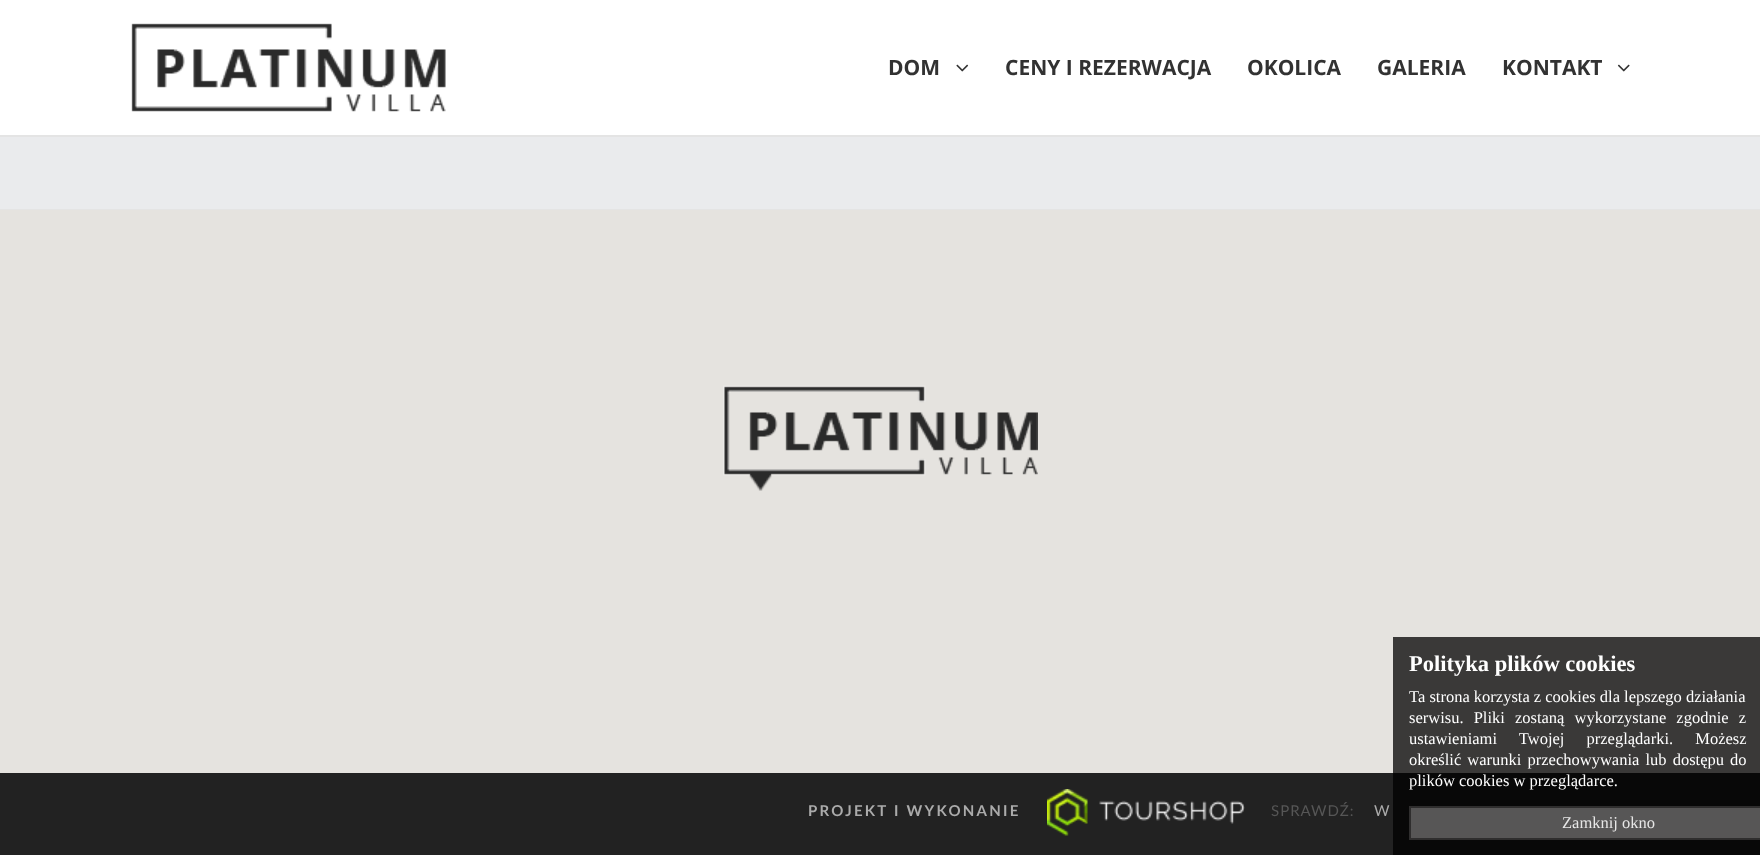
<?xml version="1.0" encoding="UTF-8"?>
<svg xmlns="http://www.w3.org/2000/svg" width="1760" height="855">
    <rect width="100%" height="100%" fill="#222222"/>
    <rect x="0" y="135" width="1760" height="2" fill="#E4E4E4"/>
    <rect x="0" y="0" width="1760" height="135" fill="#FFFFFF"/>
    <image x="131" y="23" width="315" height="89" href="img_01.png"/>
    <text x="888" y="75" font-family="Open Sans" font-size="21" font-weight="700" fill="#323232">DOM</text>
    <image x="956" y="64" width="13" height="8" href="img_02.png"/>
    <text x="1005" y="75" font-family="Open Sans" font-size="21" font-weight="700" fill="#323232">CENY I REZERWACJA</text>
    <text x="1247" y="75" font-family="Open Sans" font-size="21" font-weight="700" fill="#323232">OKOLICA</text>
    <text x="1377" y="75" font-family="Open Sans" font-size="21" font-weight="700" fill="#323232">GALERIA</text>
    <text x="1502" y="75" font-family="Open Sans" font-size="21" font-weight="700" fill="#323232">KONTAKT</text>
    <image x="1617" y="64" width="13" height="8" href="img_03.png"/>
    <rect x="0" y="137" width="1760" height="72" fill="#EAEBED"/>
    <rect x="0" y="209" width="1760" height="1" fill="#E4E4E4"/>
    <rect x="0" y="210" width="1760" height="563" fill="#E5E3DF"/>
    <image x="723" y="385" width="315" height="106" href="img_04.png"/>
    <text x="808" y="816" font-family="Lato" font-size="15" font-weight="700" letter-spacing="2.25" fill="#ABABAB">PROJEKT I WYKONANIE</text>
    <image x="1047" y="789" width="41" height="47" href="img_05.png"/>
    <image x="1099" y="800" width="146" height="24" href="img_06.png"/>
    <text x="1271" y="816" font-family="Lato" font-size="15" letter-spacing="1" fill="#565656">SPRAWDŹ:</text>
    <text x="1374" y="816" font-family="Lato" font-size="15" letter-spacing="1" fill="#ABABAB">W</text>
    <rect x="1393" y="637" width="367" height="218" fill="#000000" fill-opacity="0.75"/>
    <text x="1409" y="671" font-family="Liberation Serif" font-size="22.5" font-weight="700" fill="#FFFFFF">Polityka plików cookies</text>
    <text font-family="Liberation Serif" font-size="16.5" fill="#FFFFFF">
        <tspan x="1409" y="702">Ta strona korzysta z cookies dla lepszego działania</tspan>
        <tspan x="1409" y="723" word-spacing="6">serwisu. Pliki zostaną wykorzystane zgodnie z</tspan>
        <tspan x="1409" y="744" word-spacing="18">ustawieniami Twojej przeglądarki. Możesz</tspan>
        <tspan x="1409" y="765" word-spacing="2">określić warunki przechowywania lub dostępu do</tspan>
        <tspan x="1409" y="786">plików cookies w przeglądarce.</tspan>
    </text>
    <rect x="1410" y="807" width="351" height="32" fill="#575656" stroke="#2F2E2E" stroke-width="2"/>
    <text x="1562" y="828" font-family="Liberation Serif" font-size="16.5" fill="#E7E7E7">Zamknij okno</text>
</svg>
